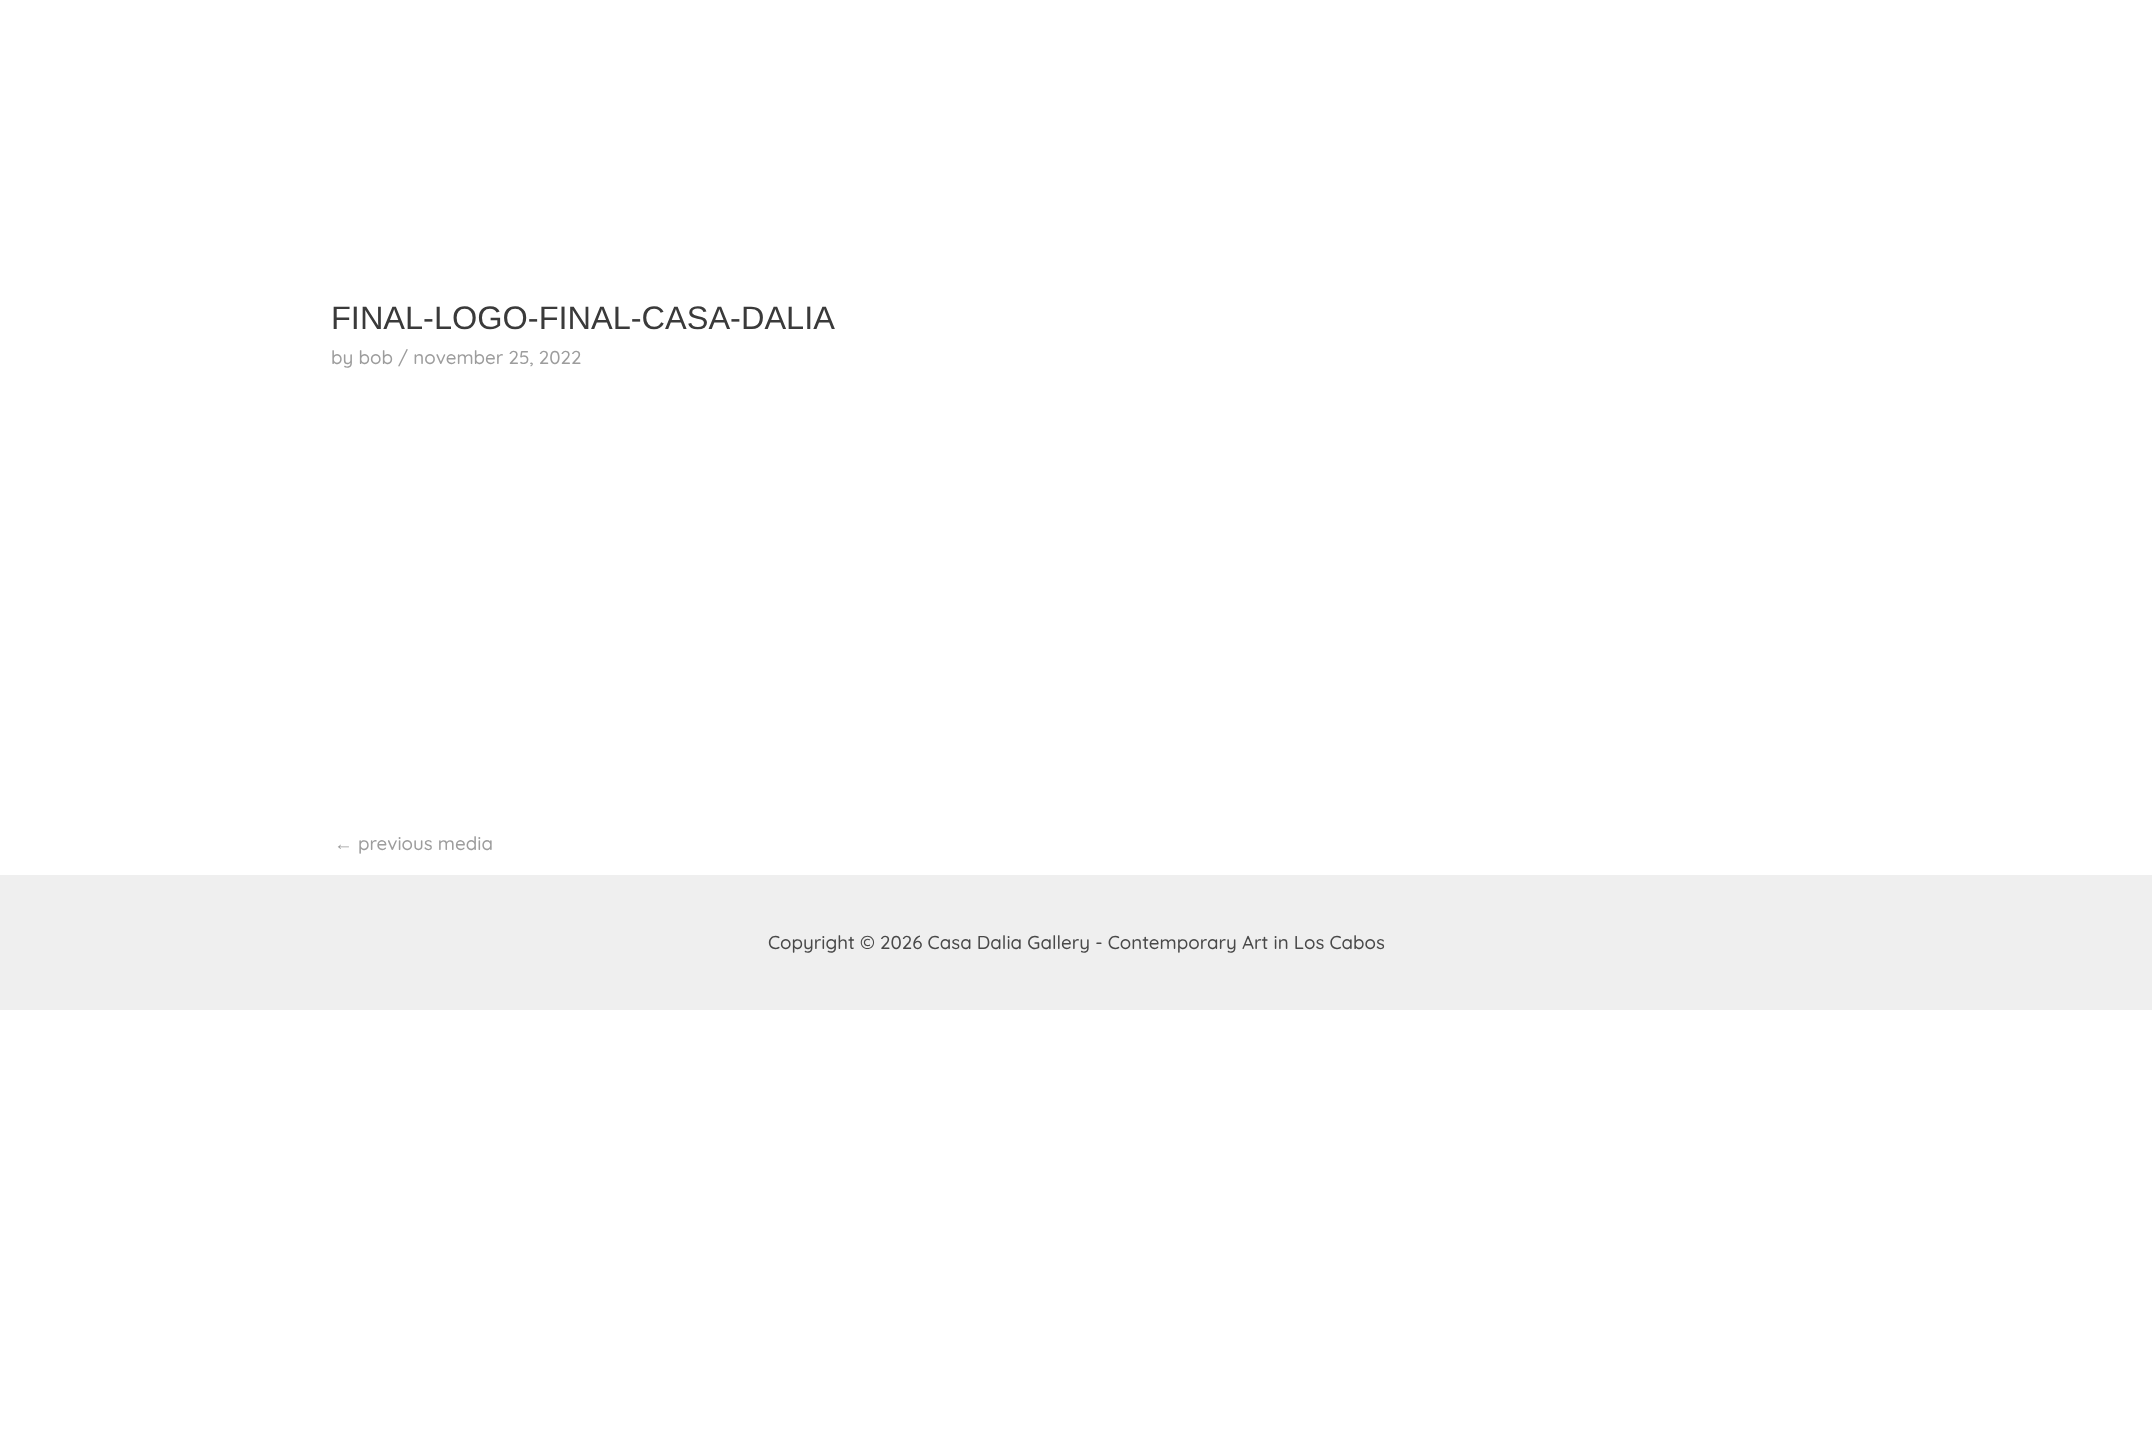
<?xml version="1.0" encoding="UTF-8"?>
<svg xmlns="http://www.w3.org/2000/svg" width="2152" height="1446">
    <rect width="100%" height="100%" fill="#FFFFFF"/>
    <text x="331" y="329" font-family="Liberation Sans" font-size="32.5" fill="#3A3A3A">FINAL-LOGO-FINAL-CASA-DALIA</text>
    <text x="331" y="364" font-family="Quicksand" font-size="18.75" font-weight="500" fill="#9D9D9D">by bob / november 25, 2022</text>
    <text x="334" y="850" font-family="Liberation Sans" font-size="18.75" fill="#9D9D9D">←</text>
    <text x="358" y="850" font-family="Quicksand" font-size="18.75" font-weight="500" fill="#9D9D9D">previous media</text>
    <rect x="0" y="875" width="2152" height="135" fill="#EFEFEF"/>
    <text x="768" y="949" font-family="Quicksand" font-size="18.75" font-weight="500" fill="#494949">Copyright © 2026 Casa Dalia Gallery - Contemporary Art in Los Cabos</text>
</svg>
